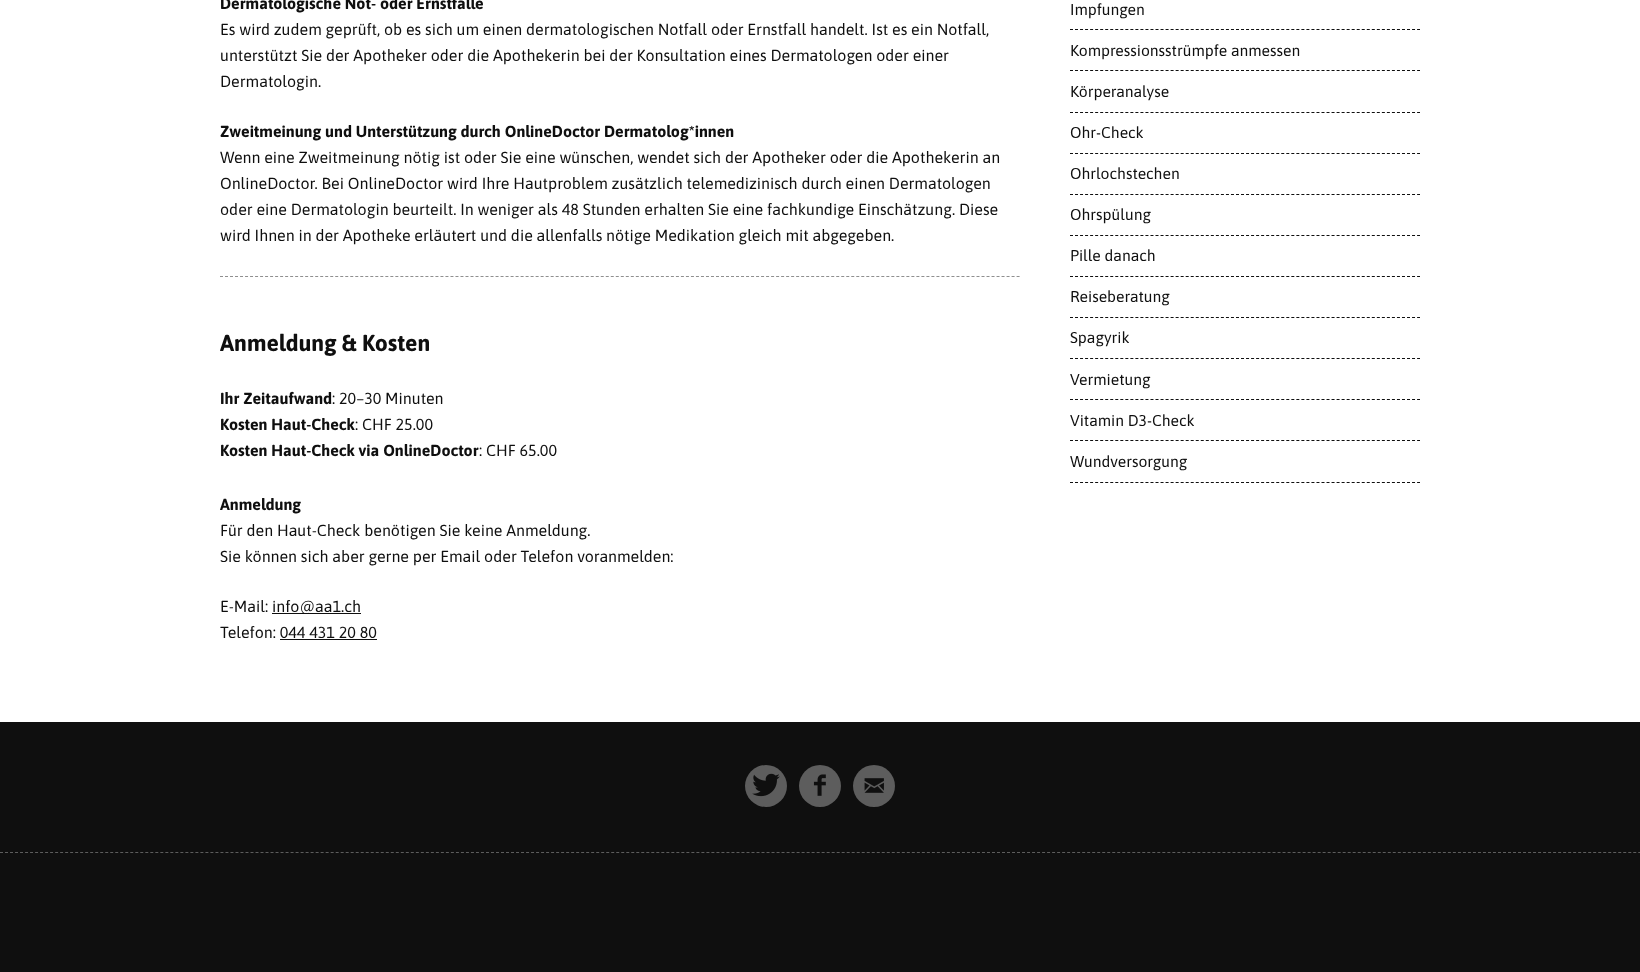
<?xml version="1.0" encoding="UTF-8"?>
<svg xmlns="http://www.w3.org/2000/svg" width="1640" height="972">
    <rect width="100%" height="100%" fill="#FFFFFF"/>
    <text x="220" y="9" font-family="Asap" font-size="16" font-weight="700" fill="#0F0F0F">Dermatologische Not- oder Ernstfälle</text>
    <text font-family="Asap" font-size="16" fill="#0F0F0F">
        <tspan x="220" y="35">Es wird zudem geprüft, ob es sich um einen dermatologischen Notfall oder Ernstfall handelt. Ist es ein Notfall,</tspan>
        <tspan x="220" y="61">unterstützt Sie der Apotheker oder die Apothekerin bei der Konsultation eines Dermatologen oder einer</tspan>
        <tspan x="220" y="87">Dermatologin.</tspan>
    </text>
    <text x="220" y="137" font-family="Asap" font-size="16" font-weight="700" fill="#0F0F0F">Zweitmeinung und Unterstützung durch OnlineDoctor Dermatolog*innen</text>
    <text font-family="Asap" font-size="16" fill="#0F0F0F">
        <tspan x="220" y="163">Wenn eine Zweitmeinung nötig ist oder Sie eine wünschen, wendet sich der Apotheker oder die Apothekerin an</tspan>
        <tspan x="220" y="189">OnlineDoctor. Bei OnlineDoctor wird Ihre Hautproblem zusätzlich telemedizinisch durch einen Dermatologen</tspan>
        <tspan x="220" y="215">oder eine Dermatologin beurteilt. In weniger als 48 Stunden erhalten Sie eine fachkundige Einschätzung. Diese</tspan>
        <tspan x="220" y="241">wird Ihnen in der Apotheke erläutert und die allenfalls nötige Medikation gleich mit abgegeben.</tspan>
    </text>
    <path d="M 220 276.5 H 1020" fill="none" stroke="#8F8F8F" stroke-dasharray="3 2.01"/>
    <text x="220" y="351" font-family="Asap" font-size="23" font-weight="700" fill="#0F0F0F">Anmeldung &amp; Kosten</text>
    <text x="220" y="404" font-family="Asap" font-size="16" font-weight="700" fill="#0F0F0F">Ihr Zeitaufwand</text>
    <text x="332" y="404" font-family="Asap" font-size="16" fill="#0F0F0F">: 20–30 Minuten</text>
    <text x="220" y="430" font-family="Asap" font-size="16" font-weight="700" fill="#0F0F0F">Kosten Haut-Check</text>
    <text x="355" y="430" font-family="Asap" font-size="16" fill="#0F0F0F">: CHF 25.00</text>
    <text x="220" y="456" font-family="Asap" font-size="16" font-weight="700" fill="#0F0F0F">Kosten Haut-Check via OnlineDoctor</text>
    <text x="479" y="456" font-family="Asap" font-size="16" fill="#0F0F0F">: CHF 65.00</text>
    <text x="220" y="510" font-family="Asap" font-size="16" font-weight="700" fill="#0F0F0F">Anmeldung</text>
    <text font-family="Asap" font-size="16" fill="#0F0F0F">
        <tspan x="220" y="536">Für den Haut-Check benötigen Sie keine Anmeldung.</tspan>
        <tspan x="220" y="562">Sie können sich aber gerne per Email oder Telefon voranmelden:</tspan>
    </text>
    <text x="220" y="612" font-family="Asap" font-size="16" fill="#0F0F0F">E-Mail:</text>
    <rect x="272" y="613" width="89" height="1" fill="#0F0F0F"/>
    <text x="272" y="612" font-family="Asap" font-size="16" fill="#0F0F0F">info@aa1.ch</text>
    <text x="220" y="638" font-family="Asap" font-size="16" fill="#0F0F0F">Telefon: 044 431 20 80</text>
    <rect x="280" y="639" width="97" height="1" fill="#0F0F0F"/>
    <path d="M 1070 29.5 H 1420" fill="none" stroke="#0F0F0F" stroke-dasharray="3 2.03"/>
    <text x="1070" y="15" font-family="Asap" font-size="15.7" fill="#0F0F0F">Impfungen</text>
    <path d="M 1070 70.5 H 1420" fill="none" stroke="#0F0F0F" stroke-dasharray="3 2.03"/>
    <text x="1070" y="56" font-family="Asap" font-size="15.7" fill="#0F0F0F">Kompressionsstrümpfe anmessen</text>
    <path d="M 1070 112.5 H 1420" fill="none" stroke="#0F0F0F" stroke-dasharray="3 2.03"/>
    <text x="1070" y="97" font-family="Asap" font-size="15.7" fill="#0F0F0F">Körperanalyse</text>
    <path d="M 1070 153.5 H 1420" fill="none" stroke="#0F0F0F" stroke-dasharray="3 2.03"/>
    <text x="1070" y="138" font-family="Asap" font-size="15.7" fill="#0F0F0F">Ohr-Check</text>
    <path d="M 1070 194.5 H 1420" fill="none" stroke="#0F0F0F" stroke-dasharray="3 2.03"/>
    <text x="1070" y="179" font-family="Asap" font-size="15.7" fill="#0F0F0F">Ohrlochstechen</text>
    <path d="M 1070 235.5 H 1420" fill="none" stroke="#0F0F0F" stroke-dasharray="3 2.03"/>
    <text x="1070" y="220" font-family="Asap" font-size="15.7" fill="#0F0F0F">Ohrspülung</text>
    <path d="M 1070 276.5 H 1420" fill="none" stroke="#0F0F0F" stroke-dasharray="3 2.03"/>
    <text x="1070" y="261" font-family="Asap" font-size="15.7" fill="#0F0F0F">Pille danach</text>
    <path d="M 1070 317.5 H 1420" fill="none" stroke="#0F0F0F" stroke-dasharray="3 2.03"/>
    <text x="1070" y="302" font-family="Asap" font-size="15.7" fill="#0F0F0F">Reiseberatung</text>
    <path d="M 1070 358.5 H 1420" fill="none" stroke="#0F0F0F" stroke-dasharray="3 2.03"/>
    <text x="1070" y="343" font-family="Asap" font-size="15.7" fill="#0F0F0F">Spagyrik</text>
    <path d="M 1070 399.5 H 1420" fill="none" stroke="#0F0F0F" stroke-dasharray="3 2.03"/>
    <text x="1070" y="385" font-family="Asap" font-size="15.7" fill="#0F0F0F">Vermietung</text>
    <path d="M 1070 440.5 H 1420" fill="none" stroke="#0F0F0F" stroke-dasharray="3 2.03"/>
    <text x="1070" y="426" font-family="Asap" font-size="15.7" fill="#0F0F0F">Vitamin D3-Check</text>
    <path d="M 1070 482.5 H 1420" fill="none" stroke="#0F0F0F" stroke-dasharray="3 2.03"/>
    <text x="1070" y="467" font-family="Asap" font-size="15.7" fill="#0F0F0F">Wundversorgung</text>
    <rect x="0" y="722" width="1640" height="250" fill="#0F0F0F"/>
    <path d="M 0 852.5 H 1640" fill="none" stroke="#5D5D5D" stroke-dasharray="3 2.01"/>
    <circle cx="766" cy="786" r="21" fill="#5D5D5D"/>
    <image x="752" y="773" width="28" height="24" href="img_01.png"/>
    <circle cx="820" cy="786" r="21" fill="#5D5D5D"/>
    <image x="813" y="774" width="13" height="22" href="img_02.png"/>
    <circle cx="874" cy="786" r="21" fill="#5D5D5D"/>
    <image x="864" y="778" width="20" height="15" href="img_03.png"/>
</svg>
